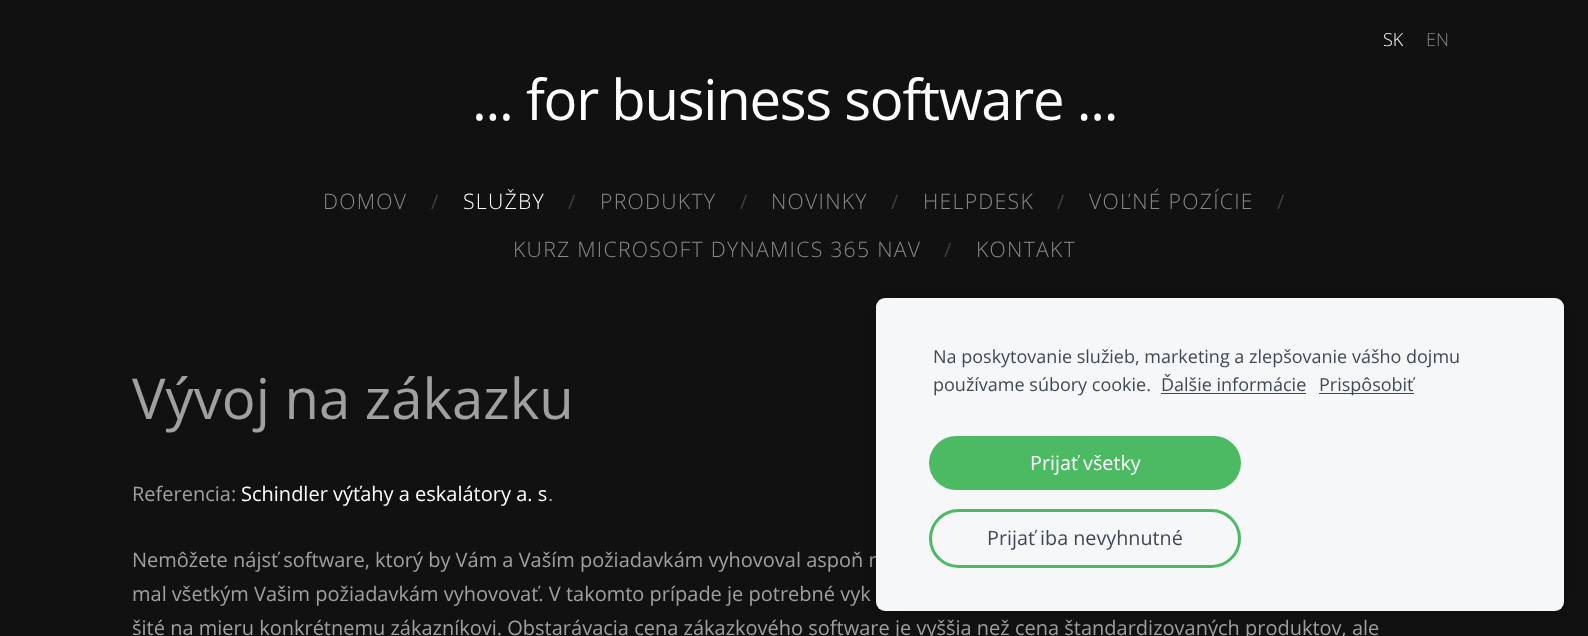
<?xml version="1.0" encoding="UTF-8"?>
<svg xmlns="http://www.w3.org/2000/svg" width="1588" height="636">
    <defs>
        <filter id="blur1" x="-50%" y="-200%" width="200%" height="500%"><feGaussianBlur stdDeviation="10.5"/></filter>
    </defs>
    <rect width="100%" height="100%" fill="#111111"/>
    <text x="1383" y="46" font-family="Open Sans" font-size="18" font-weight="300" fill="#FFFFFF">SK</text>
    <text x="1426" y="46" font-family="Open Sans" font-size="18" font-weight="300" fill="#898989">EN</text>
    <text x="472" y="120" font-family="Open Sans" font-size="56.25" letter-spacing="-1.25" fill="#FFFFFF">... for business software ...</text>
    <text x="323" y="209" font-family="Open Sans" font-size="21.25" font-weight="300" letter-spacing="1.25" fill="#898989">DOMOV</text>
    <text x="431" y="209" font-family="Open Sans" font-size="20" fill="#3E3E3E">/</text>
    <text x="463" y="209" font-family="Open Sans" font-size="21.25" font-weight="300" letter-spacing="1.25" fill="#FFFFFF">SLUŽBY</text>
    <text x="568" y="209" font-family="Open Sans" font-size="20" fill="#3E3E3E">/</text>
    <text x="600" y="209" font-family="Open Sans" font-size="21.25" font-weight="300" letter-spacing="1.25" fill="#898989">PRODUKTY</text>
    <text x="740" y="209" font-family="Open Sans" font-size="20" fill="#3E3E3E">/</text>
    <text x="771" y="209" font-family="Open Sans" font-size="21.25" font-weight="300" letter-spacing="1.25" fill="#898989">NOVINKY</text>
    <text x="891" y="209" font-family="Open Sans" font-size="20" fill="#3E3E3E">/</text>
    <text x="923" y="209" font-family="Open Sans" font-size="21.25" font-weight="300" letter-spacing="1.25" fill="#898989">HELPDESK</text>
    <text x="1057" y="209" font-family="Open Sans" font-size="20" fill="#3E3E3E">/</text>
    <text x="1089" y="209" font-family="Open Sans" font-size="21.25" font-weight="300" letter-spacing="1.25" fill="#898989">VOĽNÉ POZÍCIE</text>
    <text x="1277" y="209" font-family="Open Sans" font-size="20" fill="#3E3E3E">/</text>
    <text x="513" y="257" font-family="Open Sans" font-size="21.25" font-weight="300" letter-spacing="1.25" fill="#898989">KURZ MICROSOFT DYNAMICS 365 NAV</text>
    <text x="944" y="257" font-family="Open Sans" font-size="20" fill="#3E3E3E">/</text>
    <text x="976" y="257" font-family="Open Sans" font-size="21.25" font-weight="300" letter-spacing="1.25" fill="#898989">KONTAKT</text>
    <text x="132" y="419" font-family="Open Sans" font-size="56.25" fill="#A0A0A0">Vývoj na zákazku</text>
    <text x="132" y="501" font-family="Open Sans" font-size="20" fill="#A0A0A0">Referencia:</text>
    <text x="241" y="501" font-family="Open Sans" font-size="20" fill="#FFFFFF">Schindler výťahy a eskalátory a. s</text>
    <text x="548" y="501" font-family="Open Sans" font-size="20" fill="#A0A0A0">.</text>
    <text font-family="Open Sans" font-size="20" fill="#A0A0A0">
        <tspan x="132" y="567">Nemôžete nájsť software, ktorý by Vám a Vaším požiadavkám vyhovoval aspoň n</tspan>
        <tspan x="132" y="601">mal všetkým Vašim požiadavkám vyhovovať. V takomto prípade je potrebné vyk</tspan>
        <tspan x="132" y="635">šité na mieru konkrétnemu zákazníkovi. Obstarávacia cena zákazkového software je vyššia než cena štandardizovaných produktov, ale</tspan>
    </text>
    <rect x="876" y="298" width="688" height="313" rx="9" fill="#000000" fill-opacity="0.2" filter="url(#blur1)"/>
    <rect x="876" y="298" width="688" height="313" rx="9" fill="#F6F7F9"/>
    <text font-family="Open Sans" font-size="18" fill="#3F4954">
        <tspan x="933" y="363">Na poskytovanie služieb, marketing a zlepšovanie vášho dojmu</tspan>
        <tspan x="933" y="391">používame súbory cookie.</tspan>
    </text>
    <text x="1161" y="391" font-family="Open Sans" font-size="18" fill="#3F4954">Ďalšie informácie</text>
    <rect x="1161" y="393" width="145" height="1" fill="#3F4954"/>
    <rect x="1319" y="393" width="95" height="1" fill="#3F4954"/>
    <text x="1319" y="391" font-family="Open Sans" font-size="18" fill="#3F4954">Prispôsobiť</text>
    <rect x="929" y="436" width="312" height="54" rx="27" fill="#4CB963"/>
    <text x="1030" y="470" font-family="Open Sans" font-size="19.75" fill="#FFFFFF">Prijať všetky</text>
    <rect x="930.5" y="510.5" width="309" height="56" rx="28" fill="none" stroke="#4CB963" stroke-width="3"/>
    <text x="987" y="545" font-family="Open Sans" font-size="19.75" fill="#3F4954">Prijať iba nevyhnutné</text>
</svg>
